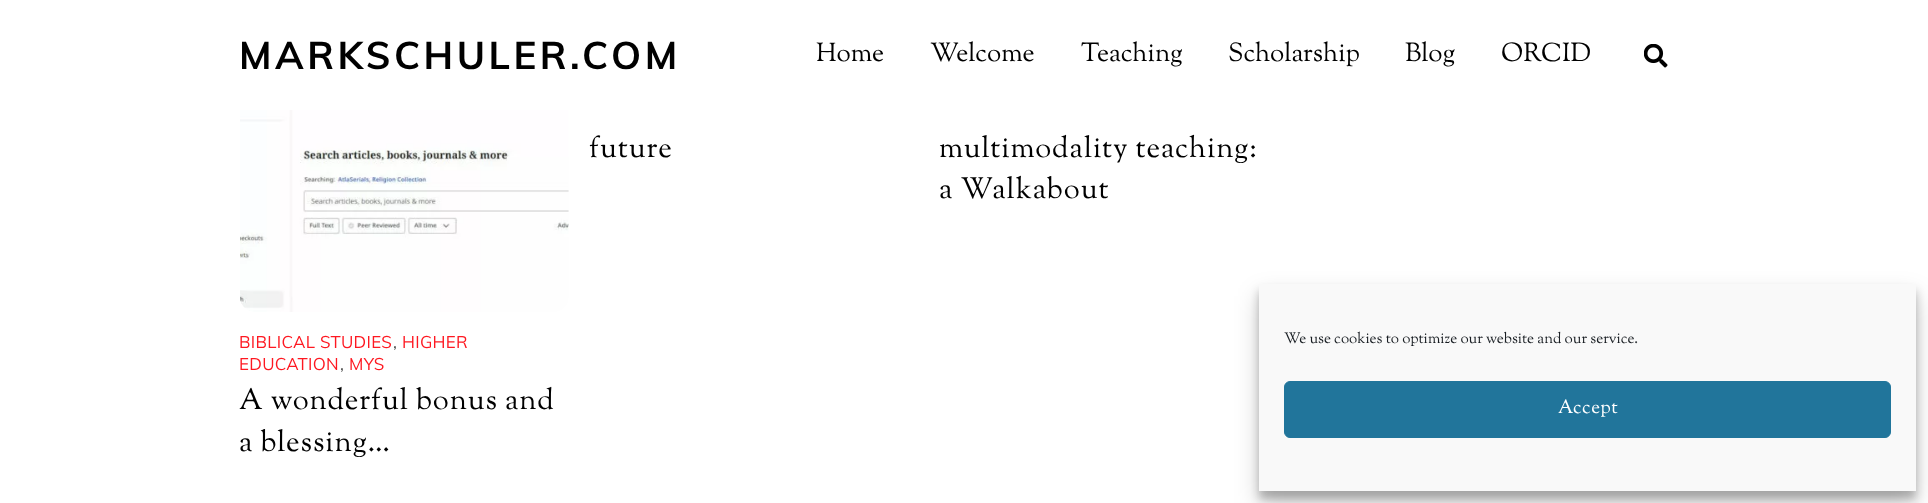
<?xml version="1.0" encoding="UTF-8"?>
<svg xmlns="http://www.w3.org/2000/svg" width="1928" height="503">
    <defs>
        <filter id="blur1" x="-50%" y="-200%" width="200%" height="500%"><feGaussianBlur stdDeviation="4"/></filter>
        <filter id="blur2" x="-50%" y="-200%" width="200%" height="500%"><feGaussianBlur stdDeviation="12.5"/></filter>
    </defs>
    <rect width="100%" height="100%" fill="#FFFFFF"/>
    <text x="239" y="69" font-family="Muli" font-size="38.25" font-weight="700" letter-spacing="3.5" fill="#000000">MARKSCHULER.COM</text>
    <text x="816" y="61" font-family="Sorts Mill Goudy" font-size="26" fill="#000000">Home</text>
    <text x="930" y="61" font-family="Sorts Mill Goudy" font-size="26" fill="#000000">Welcome</text>
    <text x="1081" y="61" font-family="Sorts Mill Goudy" font-size="26" fill="#000000">Teaching</text>
    <text x="1228" y="61" font-family="Sorts Mill Goudy" font-size="26" fill="#000000">Scholarship</text>
    <text x="1405" y="61" font-family="Sorts Mill Goudy" font-size="26" fill="#000000">Blog</text>
    <text x="1501" y="61" font-family="Sorts Mill Goudy" font-size="26" fill="#000000">ORCID</text>
    <image x="1644" y="44" width="24" height="24" href="img_01.png"/>
    <text x="589" y="157" font-family="Sorts Mill Goudy" font-size="29.25" letter-spacing="0.9" fill="#000000">future</text>
    <text font-family="Sorts Mill Goudy" font-size="29.25" letter-spacing="0.9" fill="#000000">
        <tspan x="939" y="157">multimodality teaching:</tspan>
        <tspan x="939" y="198">a Walkabout</tspan>
    </text>
    <image x="240" y="110" width="329" height="202" href="img_02.png"/>
    <text x="239" y="348" font-family="Muli" font-size="16.9" letter-spacing="0.3" fill="#FE1821">BIBLICAL STUDIES</text>
    <text x="393" y="348" font-family="Muli" font-size="16.9" letter-spacing="0.3" fill="#505050">,</text>
    <text x="402" y="348" font-family="Muli" font-size="16.9" letter-spacing="0.3" fill="#FE1821">HIGHER</text>
    <text x="239" y="370" font-family="Muli" font-size="16.9" letter-spacing="0.3" fill="#FE1821">EDUCATION</text>
    <text x="340" y="370" font-family="Muli" font-size="16.9" letter-spacing="0.3" fill="#505050">,</text>
    <text x="349" y="370" font-family="Muli" font-size="16.9" letter-spacing="0.3" fill="#FE1821">MYS</text>
    <text font-family="Sorts Mill Goudy" font-size="29.25" letter-spacing="0.9" fill="#000000">
        <tspan x="239" y="409">A wonderful bonus and</tspan>
        <tspan x="239" y="451">a blessing…</tspan>
    </text>
    <rect x="1259" y="291" width="657" height="208" fill="#000000" fill-opacity="0.23" filter="url(#blur1)"/>
    <rect x="1259" y="296" width="657" height="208" fill="#000000" fill-opacity="0.19" filter="url(#blur2)"/>
    <rect x="1259" y="284" width="657" height="207" fill="#F9F9F9"/>
    <text x="1284" y="343" font-family="Sorts Mill Goudy" font-size="15" fill="#191E23">We use cookies to optimize our website and our service.</text>
    <rect x="1284.5" y="381.5" width="606" height="56" rx="5.5" fill="#21759B" stroke="#21759B"/>
    <text x="1558" y="413" font-family="Sorts Mill Goudy" font-size="19" letter-spacing="0.5" fill="#FFFFFF">Accept</text>
</svg>
